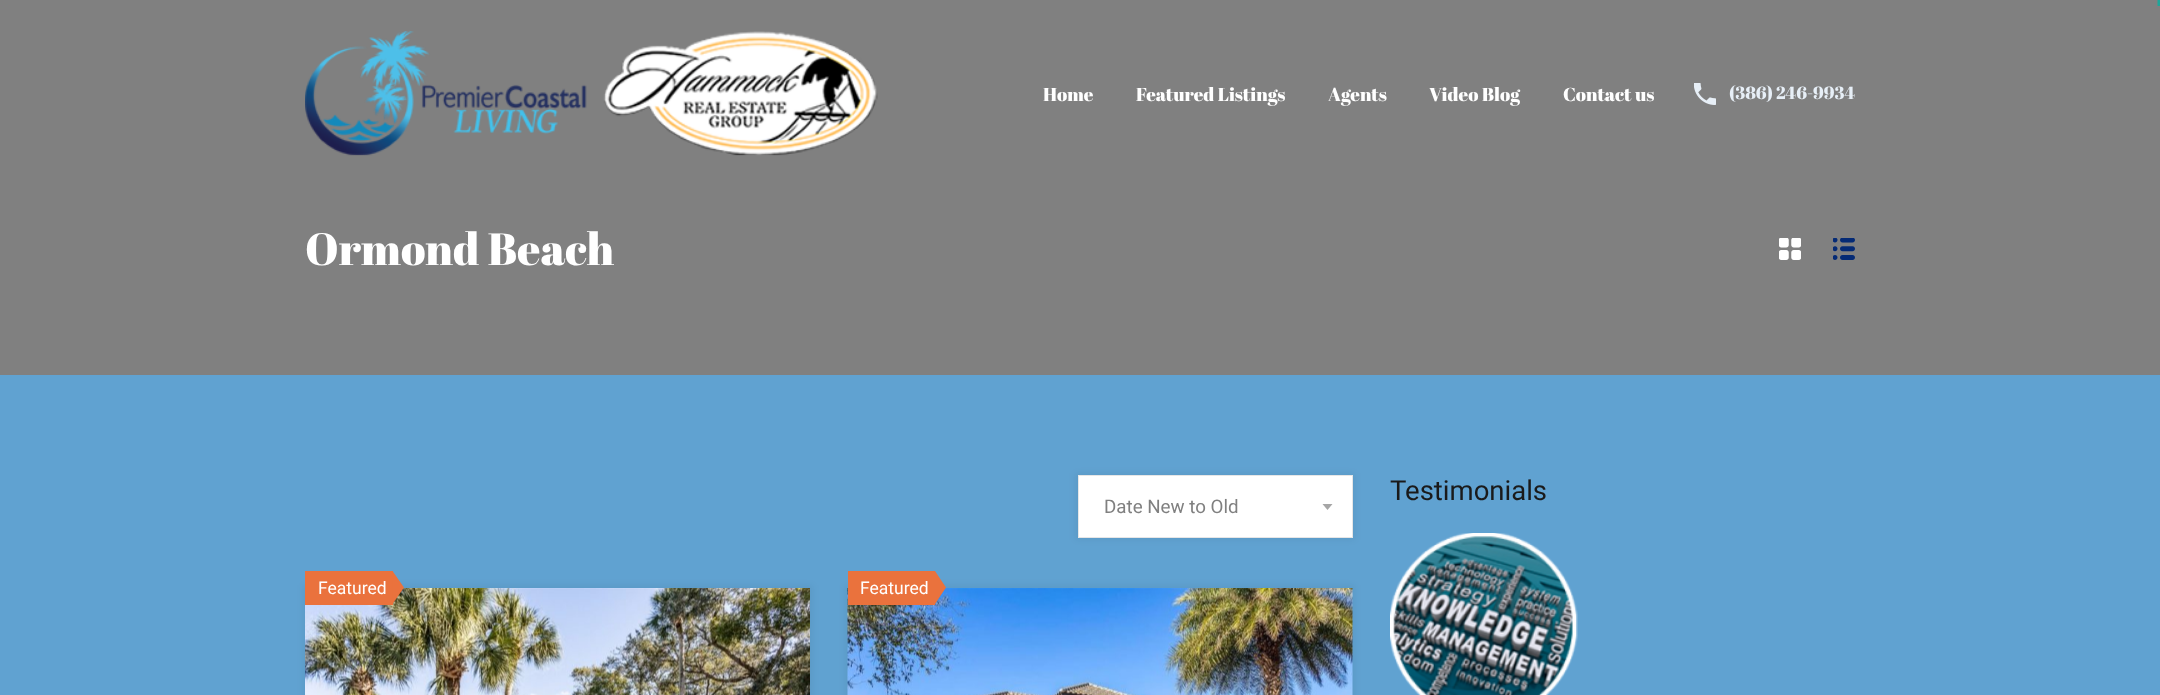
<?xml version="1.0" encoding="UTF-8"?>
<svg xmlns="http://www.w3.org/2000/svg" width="2160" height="695">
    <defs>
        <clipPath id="clip1"><rect x="0" y="0" width="2160" height="6"/></clipPath>
        <filter id="blur1" x="-50%" y="-200%" width="200%" height="500%"><feGaussianBlur stdDeviation="3"/></filter>
    </defs>
    <rect width="100%" height="100%" fill="#60A2D1"/>
    <rect x="0" y="0" width="2160" height="375" fill="#808080"/>
    <g clip-path="url(#clip1)">
        <path d="M 2157.5 3 H 2160" fill="none" stroke="#1EA69A" stroke-width="6.5"/>
    </g>
    <image x="305" y="31" width="573" height="125" href="img_01.png"/>
    <text x="1043" y="101" font-family="Abril Fatface" font-size="18.75" fill="#FFFFFF">Home</text>
    <text x="1136" y="101" font-family="Abril Fatface" font-size="18.75" fill="#FFFFFF">Featured Listings</text>
    <text x="1328" y="101" font-family="Abril Fatface" font-size="18.75" fill="#FFFFFF">Agents</text>
    <text x="1429" y="101" font-family="Abril Fatface" font-size="18.75" fill="#FFFFFF">Video Blog</text>
    <text x="1563" y="101" font-family="Abril Fatface" font-size="18.75" fill="#FFFFFF">Contact us</text>
    <image x="1694" y="83" width="22" height="22" href="img_02.png"/>
    <text x="1729" y="99" font-family="Abril Fatface" font-size="17.5" fill="#E7EFF7">(386) 246-9934</text>
    <text x="305" y="265" font-family="Abril Fatface" font-size="45" fill="#FFFFFF">Ormond Beach</text>
    <image x="1779" y="238" width="22" height="22" href="img_03.png"/>
    <image x="1833" y="238" width="22" height="22" href="img_04.png"/>
    <text x="1390" y="500" font-family="Roboto" font-size="27.5" fill="#1A1A1A">Testimonials</text>
    <image x="1390" y="533" width="188" height="162" href="img_05.png"/>
    <rect x="1075" y="473" width="280" height="67" fill="#000000" fill-opacity="0.05" filter="url(#blur1)"/>
    <rect x="1078.5" y="475.5" width="274" height="62" fill="#FFFFFF" stroke="#E6E6E6"/>
    <text x="1104" y="513" font-family="Roboto" font-size="18.75" fill="#808080">Date New to Old</text>
    <path d="M 1322.5 504 H 1332.5 L 1327.5 510 Z" fill="#A6A6A6"/>
    <rect x="303" y="585" width="510" height="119" fill="#000000" fill-opacity="0.05" filter="url(#blur1)"/>
    <image x="305" y="588" width="505" height="107" href="img_06.png"/>
    <rect x="305" y="571" width="88" height="34" fill="#EA723D"/>
    <text x="318" y="594" font-family="Roboto" font-size="17.5" fill="#FFFFFF">Featured</text>
    <path d="M 392.5 604 V 571 L 404 587.5 Z" fill="#EA723D"/>
    <rect x="845" y="585" width="510" height="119" fill="#000000" fill-opacity="0.05" filter="url(#blur1)"/>
    <image x="847" y="588" width="506" height="107" href="img_07.png"/>
    <rect x="848" y="571" width="87" height="34" fill="#EA723D"/>
    <text x="860" y="594" font-family="Roboto" font-size="17.5" fill="#FFFFFF">Featured</text>
    <path d="M 935 604 V 571 L 946 587.5 Z" fill="#EA723D"/>
</svg>
